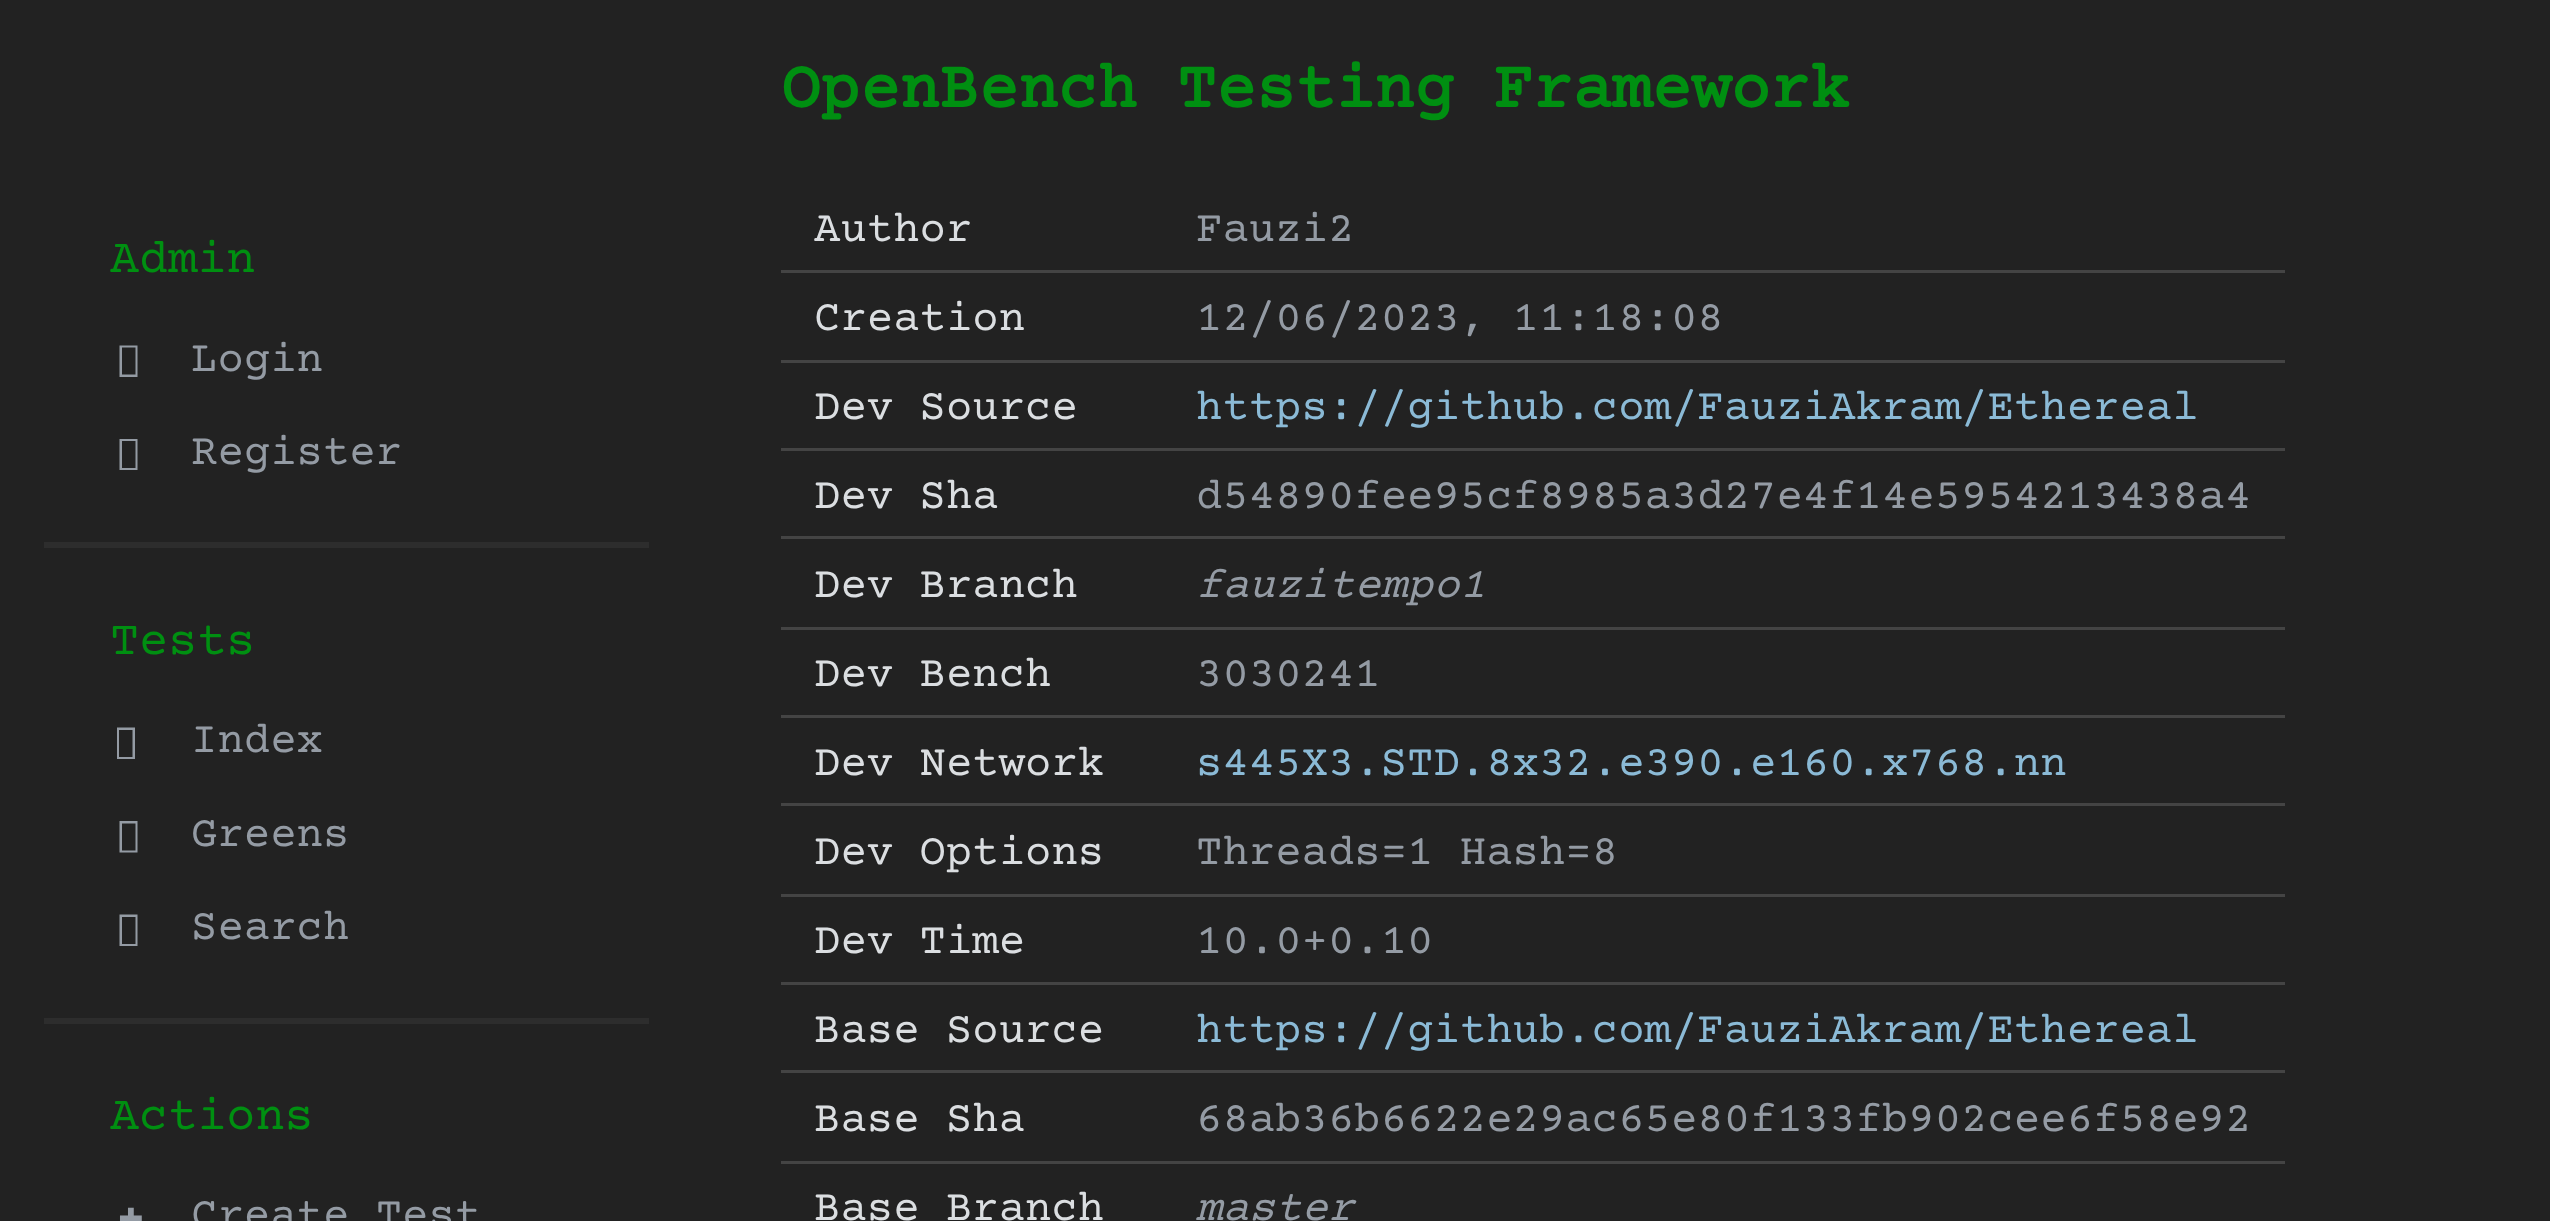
<?xml version="1.0" encoding="UTF-8"?>
<svg xmlns="http://www.w3.org/2000/svg" width="2550" height="1221">
    <rect width="100%" height="100%" fill="#222222"/>
    <text x="110" y="272" font-family="Courier Prime" font-size="48.5" fill="#008F11">Admin</text>
    <path d="M 119.5 377 V 345.5 H 137.5 V 377 Z M 122 374.5 H 135.5 V 347.5 H 122 Z" fill="#949BA4"/>
    <text x="191" y="371" font-family="Courier Prime" font-size="44" fill="#949BA4">Login</text>
    <path d="M 119.5 470 V 439 H 137.5 V 470 Z M 122 468 H 135.5 V 441 H 122 Z" fill="#949BA4"/>
    <text x="191" y="464" font-family="Courier Prime" font-size="44" fill="#949BA4">Register</text>
    <rect x="44" y="542" width="605" height="6" fill="#2D2D2D"/>
    <text x="110" y="654" font-family="Courier Prime" font-size="48.5" fill="#008F11">Tests</text>
    <path d="M 117 759 V 727.5 H 135 V 759 Z M 119 757 H 132.5 V 730 H 119 Z" fill="#949BA4"/>
    <text x="191" y="752" font-family="Courier Prime" font-size="44" fill="#949BA4">Index</text>
    <path d="M 119.5 852.5 V 821 H 137.5 V 852.5 Z M 122 850.5 H 135.5 V 823.5 H 122 Z" fill="#949BA4"/>
    <text x="191" y="846" font-family="Courier Prime" font-size="44" fill="#949BA4">Greens</text>
    <path d="M 119.5 946 V 914.5 H 137.5 V 946 Z M 122 944 H 135.5 V 917 H 122 Z" fill="#949BA4"/>
    <text x="191" y="939" font-family="Courier Prime" font-size="44" fill="#949BA4">Search</text>
    <rect x="44" y="1018" width="605" height="6" fill="#2D2D2D"/>
    <text x="110" y="1129" font-family="Courier Prime" font-size="48.5" fill="#008F11">Actions</text>
    <text x="118" y="1234" font-family="Noto Sans" font-size="44" font-weight="900" fill="#949BA4">+</text>
    <text x="191" y="1227" font-family="Courier Prime" font-size="44" fill="#949BA4">Create Test</text>
    <text x="781" y="107" font-family="Courier Prime" font-size="66" font-weight="700" fill="#008F11">OpenBench Testing Framework</text>
    <text x="814" y="241" font-family="Courier Prime" font-size="44" fill="#DBDEE1">Author</text>
    <rect x="781" y="270" width="1504" height="3" fill="#444444"/>
    <text x="1196" y="241" font-family="Courier Prime" font-size="44" fill="#949BA4">Fauzi2</text>
    <text x="814" y="330" font-family="Courier Prime" font-size="44" fill="#DBDEE1">Creation</text>
    <rect x="781" y="360" width="1504" height="3" fill="#444444"/>
    <text x="1196" y="330" font-family="Courier Prime" font-size="44" fill="#949BA4">12/06/2023, 11:18:08</text>
    <text x="814" y="419" font-family="Courier Prime" font-size="44" fill="#DBDEE1">Dev Source</text>
    <rect x="781" y="448" width="1504" height="3" fill="#444444"/>
    <text x="1196" y="419" font-family="Courier Prime" font-size="44" fill="#8BBAD6">https://github.com/FauziAkram/Ethereal</text>
    <text x="814" y="508" font-family="Courier Prime" font-size="44" fill="#DBDEE1">Dev Sha</text>
    <rect x="781" y="536" width="1504" height="3" fill="#444444"/>
    <text x="1196" y="508" font-family="Courier Prime" font-size="44" fill="#949BA4">d54890fee95cf8985a3d27e4f14e5954213438a4</text>
    <text x="814" y="597" font-family="Courier Prime" font-size="44" fill="#DBDEE1">Dev Branch</text>
    <rect x="781" y="627" width="1504" height="3" fill="#444444"/>
    <text x="1196" y="597" font-family="Courier Prime" font-size="44" font-style="italic" fill="#949BA4">fauzitempo1</text>
    <text x="814" y="686" font-family="Courier Prime" font-size="44" fill="#DBDEE1">Dev Bench</text>
    <rect x="781" y="715" width="1504" height="3" fill="#444444"/>
    <text x="1196" y="686" font-family="Courier Prime" font-size="44" fill="#949BA4">3030241</text>
    <text x="814" y="775" font-family="Courier Prime" font-size="44" fill="#DBDEE1">Dev Network</text>
    <rect x="781" y="803" width="1504" height="3" fill="#444444"/>
    <text x="1196" y="775" font-family="Courier Prime" font-size="44" fill="#8BBAD6">s445X3.STD.8x32.e390.e160.x768.nn</text>
    <text x="814" y="864" font-family="Courier Prime" font-size="44" fill="#DBDEE1">Dev Options</text>
    <rect x="781" y="894" width="1504" height="3" fill="#444444"/>
    <text x="1196" y="864" font-family="Courier Prime" font-size="44" fill="#949BA4">Threads=1 Hash=8</text>
    <text x="814" y="953" font-family="Courier Prime" font-size="44" fill="#DBDEE1">Dev Time</text>
    <rect x="781" y="982" width="1504" height="3" fill="#444444"/>
    <text x="1196" y="953" font-family="Courier Prime" font-size="44" fill="#949BA4">10.0+0.10</text>
    <text x="814" y="1042" font-family="Courier Prime" font-size="44" fill="#DBDEE1">Base Source</text>
    <rect x="781" y="1070" width="1504" height="3" fill="#444444"/>
    <text x="1196" y="1042" font-family="Courier Prime" font-size="44" fill="#8BBAD6">https://github.com/FauziAkram/Ethereal</text>
    <text x="814" y="1131" font-family="Courier Prime" font-size="44" fill="#DBDEE1">Base Sha</text>
    <rect x="781" y="1161" width="1504" height="3" fill="#444444"/>
    <text x="1196" y="1131" font-family="Courier Prime" font-size="44" fill="#949BA4">68ab36b6622e29ac65e80f133fb902cee6f58e92</text>
    <text x="814" y="1220" font-family="Courier Prime" font-size="44" fill="#DBDEE1">Base Branch</text>
    <text x="1196" y="1220" font-family="Courier Prime" font-size="44" font-style="italic" fill="#949BA4">master</text>
</svg>
